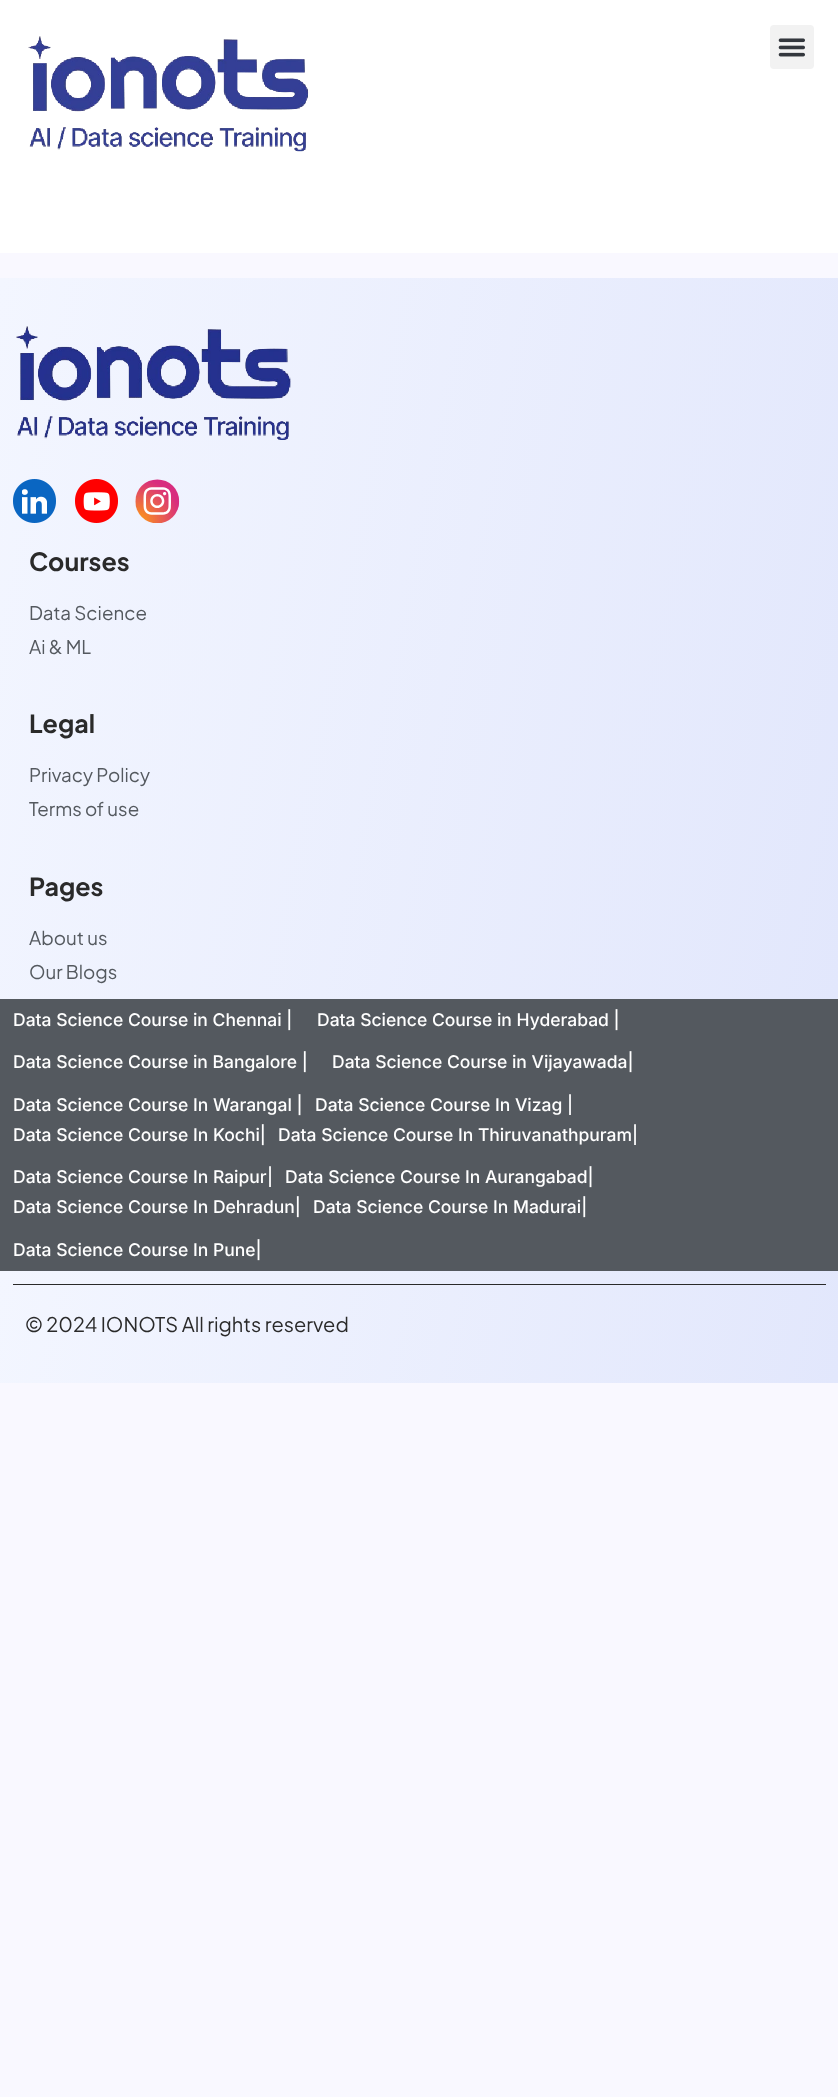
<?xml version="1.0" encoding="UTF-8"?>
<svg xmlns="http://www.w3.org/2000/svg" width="838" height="2097">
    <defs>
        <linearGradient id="g1" gradientUnits="userSpaceOnUse" x1="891" y1="730" x2="-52" y2="546"><stop offset="0" stop-color="#E2E7FC"/><stop offset="1" stop-color="#F3F6FF"/></linearGradient>
        <linearGradient id="g2" gradientUnits="userSpaceOnUse" x1="834" y1="1407" x2="4.8" y2="1246"><stop offset="0" stop-color="#E2E7FC"/><stop offset="1" stop-color="#F3F6FF"/></linearGradient>
    </defs>
    <rect width="100%" height="100%" fill="#F9F8FF"/>
    <rect x="0" y="0" width="838" height="253" fill="#FFFFFF"/>
    <image x="28" y="36" width="281" height="116" href="img_01.png"/>
    <rect x="770" y="25" width="44" height="44" rx="4" fill="#F2F2F2"/>
    <image x="778" y="38" width="27" height="19" href="img_02.png"/>
    <rect x="0" y="278" width="838" height="721" fill="url(#g1)"/>
    <image x="16" y="326" width="275" height="114" href="img_03.png"/>
    <image x="13" y="479" width="43" height="44" href="img_04.png"/>
    <image x="75" y="479" width="43" height="44" href="img_05.png"/>
    <image x="135" y="479" width="45" height="44" href="img_06.png"/>
    <text x="29" y="571" font-family="Plus Jakarta Sans" font-size="25" font-weight="700" fill="#2A2A2A">Courses</text>
    <text font-family="Plus Jakarta Sans" font-size="18.75" fill="#54595F">
        <tspan x="29" y="620">Data Science</tspan>
        <tspan x="29" y="654">Ai &amp; ML</tspan>
    </text>
    <text x="29" y="733" font-family="Plus Jakarta Sans" font-size="25" font-weight="700" fill="#2A2A2A">Legal</text>
    <text font-family="Plus Jakarta Sans" font-size="18.75" fill="#54595F">
        <tspan x="29" y="782">Privacy Policy</tspan>
        <tspan x="29" y="816">Terms of use</tspan>
    </text>
    <text x="29" y="896" font-family="Plus Jakarta Sans" font-size="25" font-weight="700" fill="#2A2A2A">Pages</text>
    <text font-family="Plus Jakarta Sans" font-size="18.75" fill="#54595F">
        <tspan x="29" y="945">About us</tspan>
        <tspan x="29" y="979">Our Blogs</tspan>
    </text>
    <rect x="0" y="999" width="838" height="272" fill="#54595F"/>
    <text x="13" y="1026" font-family="Inter" font-size="17.5" font-weight="500" fill="#FFFFFF">Data Science Course in Chennai |</text>
    <text x="317" y="1026" font-family="Inter" font-size="17.5" font-weight="500" fill="#FFFFFF">Data Science Course in Hyderabad |</text>
    <text x="13" y="1068" font-family="Inter" font-size="17.5" font-weight="500" fill="#FFFFFF">Data Science Course in Bangalore |</text>
    <text x="332" y="1068" font-family="Inter" font-size="17.5" font-weight="500" fill="#FFFFFF">Data Science Course in Vijayawada|</text>
    <text x="13" y="1111" font-family="Inter" font-size="17.5" font-weight="500" fill="#FFFFFF">Data Science Course In Warangal |</text>
    <text x="315" y="1111" font-family="Inter" font-size="17.5" font-weight="500" fill="#FFFFFF">Data Science Course In Vizag |</text>
    <text x="13" y="1141" font-family="Inter" font-size="17.5" font-weight="500" fill="#FFFFFF">Data Science Course In Kochi|</text>
    <text x="278" y="1141" font-family="Inter" font-size="17.5" font-weight="500" fill="#FFFFFF">Data Science Course In Thiruvanathpuram|</text>
    <text x="13" y="1183" font-family="Inter" font-size="17.5" font-weight="500" fill="#FFFFFF">Data Science Course In Raipur|</text>
    <text x="285" y="1183" font-family="Inter" font-size="17.5" font-weight="500" fill="#FFFFFF">Data Science Course In Aurangabad|</text>
    <text x="13" y="1213" font-family="Inter" font-size="17.5" font-weight="500" fill="#FFFFFF">Data Science Course In Dehradun|</text>
    <text x="313" y="1213" font-family="Inter" font-size="17.5" font-weight="500" fill="#FFFFFF">Data Science Course In Madurai|</text>
    <text x="13" y="1256" font-family="Inter" font-size="17.5" font-weight="500" fill="#FFFFFF">Data Science Course In Pune|</text>
    <rect x="0" y="1271" width="838" height="112" fill="url(#g2)"/>
    <rect x="13" y="1284" width="813" height="1" fill="#2A2A2A"/>
    <text x="25" y="1332" font-family="Plus Jakarta Sans" font-size="20" fill="#2A2A2A">© 2024 IONOTS All rights reserved</text>
</svg>
